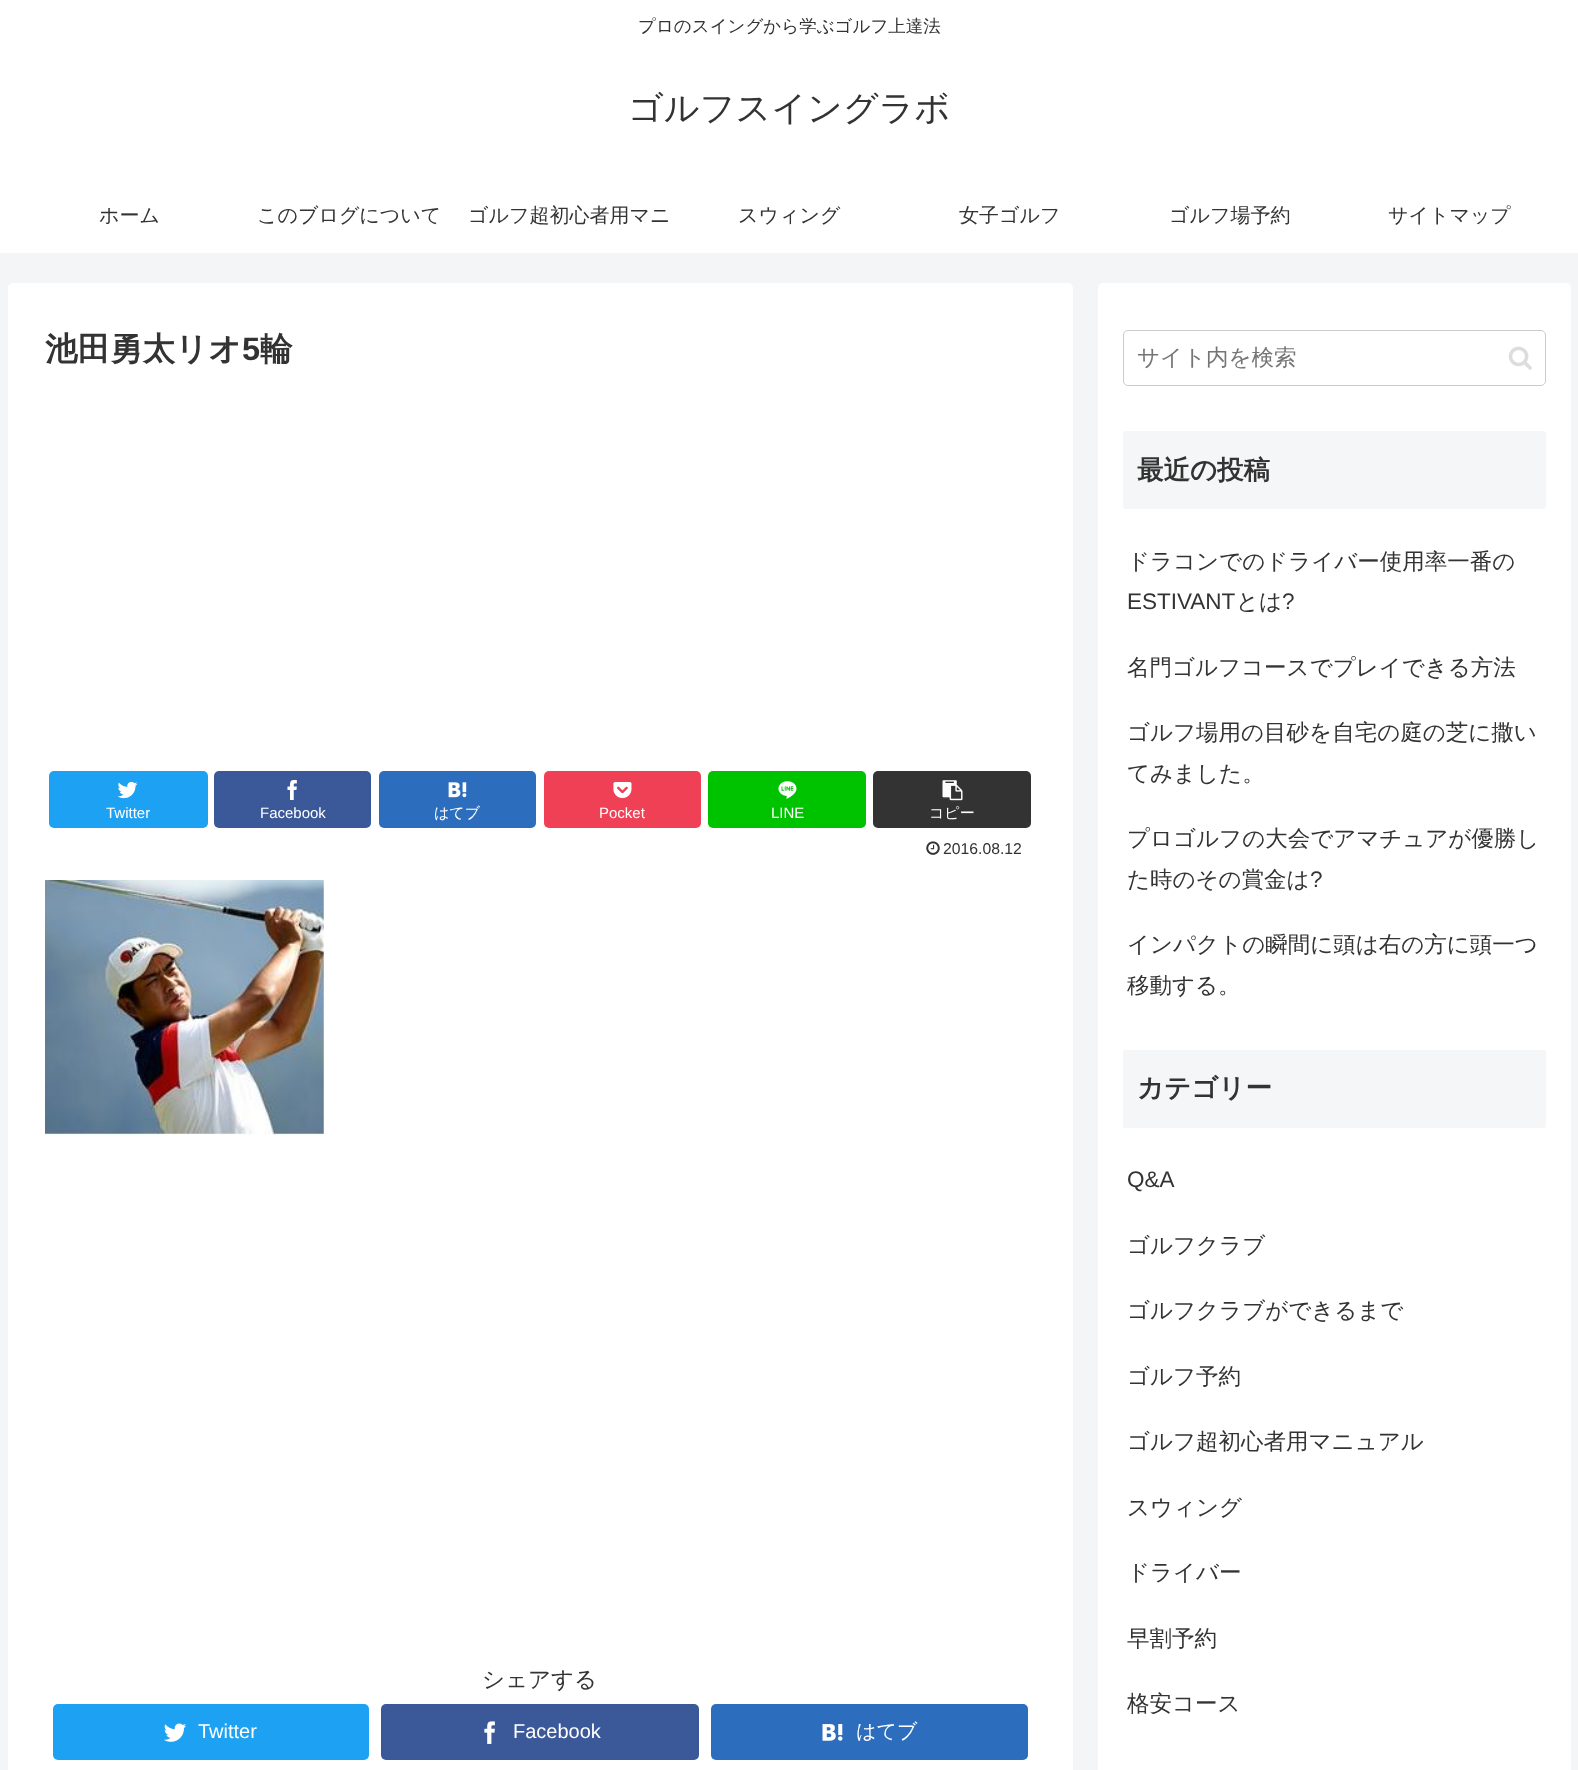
<?xml version="1.0" encoding="UTF-8"?>
<svg xmlns="http://www.w3.org/2000/svg" width="1578" height="1770">
    <rect width="100%" height="100%" fill="#F4F5F7"/>
    <rect x="0" y="0" width="1578" height="253" fill="#FFFFFF"/>
    <text x="638" y="32" font-family="WenQuanYi Zen Hei" font-size="17.5" font-weight="500" fill="#333333">プロのスイングから学ぶゴルフ上達法</text>
    <text x="628" y="120" font-family="WenQuanYi Zen Hei" font-size="35" font-weight="500" fill="#333333">ゴルフスイングラボ</text>
    <text x="99" y="222" font-family="WenQuanYi Zen Hei" font-size="20" font-weight="500" fill="#333333">ホーム</text>
    <text x="257" y="222" font-family="WenQuanYi Zen Hei" font-size="20" font-weight="500" fill="#333333">このブログについて</text>
    <text x="468" y="222" font-family="WenQuanYi Zen Hei" font-size="20" font-weight="500" fill="#333333">ゴルフ超初心者用マニ</text>
    <text x="738" y="222" font-family="WenQuanYi Zen Hei" font-size="20" font-weight="500" fill="#333333">スウィング</text>
    <text x="959" y="222" font-family="WenQuanYi Zen Hei" font-size="20" font-weight="500" fill="#333333">女子ゴルフ</text>
    <text x="1169" y="222" font-family="WenQuanYi Zen Hei" font-size="20" font-weight="500" fill="#333333">ゴルフ場予約</text>
    <text x="1388" y="222" font-family="WenQuanYi Zen Hei" font-size="20" font-weight="500" fill="#333333">サイトマップ</text>
    <rect x="8" y="283" width="1065" height="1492" rx="5" fill="#FFFFFF"/>
    <text x="45" y="360" font-family="WenQuanYi Zen Hei" font-size="32.5" font-weight="700" fill="#333333">池田勇太リオ</text>
    <text x="242" y="360" font-family="Liberation Sans" font-size="32.5" font-weight="700" fill="#333333">5</text>
    <text x="260" y="360" font-family="WenQuanYi Zen Hei" font-size="32.5" font-weight="700" fill="#333333">輪</text>
    <rect x="49" y="771" width="159" height="57" rx="5" fill="#1DA1F2"/>
    <image x="117" y="781" width="21" height="18" href="img_01.png"/>
    <text x="106" y="818" font-family="Liberation Sans" font-size="15" fill="#FFFFFF">Twitter</text>
    <rect x="214" y="771" width="157" height="57" rx="5" fill="#3B5998"/>
    <image x="287" y="780" width="10" height="20" href="img_02.png"/>
    <text x="260" y="818" font-family="Liberation Sans" font-size="15" fill="#FFFFFF">Facebook</text>
    <rect x="379" y="771" width="157" height="57" rx="5" fill="#2C6EBD"/>
    <image x="448" y="782" width="19" height="16" href="img_03.png"/>
    <text x="434" y="818" font-family="WenQuanYi Zen Hei" font-size="15" font-weight="500" fill="#FFFFFF">はてブ</text>
    <rect x="544" y="771" width="157" height="57" rx="5" fill="#EF4056"/>
    <image x="613" y="782" width="19" height="17" href="img_04.png"/>
    <text x="599" y="818" font-family="Liberation Sans" font-size="15" fill="#FFFFFF">Pocket</text>
    <rect x="708" y="771" width="158" height="57" rx="5" fill="#00C300"/>
    <image x="778" y="781" width="19" height="18" href="img_05.png"/>
    <text x="771" y="818" font-family="Liberation Sans" font-size="15" fill="#FFFFFF">LINE</text>
    <rect x="873" y="771" width="158" height="57" rx="5" fill="#333333"/>
    <image x="942" y="780" width="21" height="21" href="img_06.png"/>
    <text x="929" y="818" font-family="WenQuanYi Zen Hei" font-size="15" font-weight="500" fill="#FFFFFF">コピー</text>
    <image x="926" y="841" width="14" height="14" href="img_07.png"/>
    <text x="943" y="854" font-family="Liberation Sans" font-size="15.75" fill="#333333">2016.08.12</text>
    <image x="45" y="880" width="279" height="255" href="img_08.png"/>
    <text x="482" y="1687" font-family="WenQuanYi Zen Hei" font-size="22.5" font-weight="500" fill="#333333">シェアする</text>
    <rect x="53" y="1704" width="316" height="56" rx="5" fill="#1DA1F2"/>
    <image x="164" y="1723" width="23" height="19" href="img_09.png"/>
    <text x="198" y="1738" font-family="Liberation Sans" font-size="20" fill="#FFFFFF">Twitter</text>
    <rect x="381" y="1704" width="318" height="56" rx="5" fill="#3B5998"/>
    <image x="484" y="1721" width="11" height="23" href="img_10.png"/>
    <text x="513" y="1738" font-family="Liberation Sans" font-size="20" fill="#FFFFFF">Facebook</text>
    <rect x="711" y="1704" width="317" height="56" rx="5" fill="#2C6EBD"/>
    <image x="822" y="1724" width="21" height="17" href="img_11.png"/>
    <text x="856" y="1738" font-family="WenQuanYi Zen Hei" font-size="20" font-weight="500" fill="#FFFFFF">はてブ</text>
    <rect x="1098" y="283" width="473" height="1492" rx="5" fill="#FFFFFF"/>
    <rect x="1123.5" y="330.5" width="422" height="55" rx="4.5" fill="none" stroke="#CCCCCC"/>
    <text x="1137" y="365" font-family="WenQuanYi Zen Hei" font-size="22.5" font-weight="500" fill="#757575">サイト内を検索</text>
    <image x="1508" y="346" width="24" height="24" href="img_12.png"/>
    <rect x="1123" y="431" width="423" height="78" rx="2.5" fill="#F5F6F7"/>
    <text x="1137" y="479" font-family="WenQuanYi Zen Hei" font-size="26.5" font-weight="700" fill="#333333">最近の投稿</text>
    <text x="1127" y="569" font-family="WenQuanYi Zen Hei" font-size="22.5" font-weight="500" fill="#333333">ドラコンでのドライバー使用率一番の</text>
    <text x="1127" y="609" font-family="Liberation Sans" font-size="22.5" fill="#333333">ESTIVANT</text>
    <text x="1236" y="609" font-family="WenQuanYi Zen Hei" font-size="22.5" font-weight="500" fill="#333333">とは</text>
    <text x="1282" y="609" font-family="Liberation Sans" font-size="22.5" fill="#333333">?</text>
    <text x="1127" y="675" font-family="WenQuanYi Zen Hei" font-size="22.5" font-weight="500" fill="#333333">名門ゴルフコースでプレイできる方法</text>
    <text font-family="WenQuanYi Zen Hei" font-size="22.5" font-weight="500" fill="#333333">
        <tspan x="1127" y="740">ゴルフ場用の目砂を自宅の庭の芝に撒い</tspan>
        <tspan x="1127" y="781">てみました。</tspan>
    </text>
    <text font-family="WenQuanYi Zen Hei" font-size="22.5" font-weight="500" fill="#333333">
        <tspan x="1127" y="846">プロゴルフの大会でアマチュアが優勝し</tspan>
        <tspan x="1127" y="887">た時のその賞金は</tspan>
    </text>
    <text x="1310" y="887" font-family="Liberation Sans" font-size="22.5" fill="#333333">?</text>
    <text font-family="WenQuanYi Zen Hei" font-size="22.5" font-weight="500" fill="#333333">
        <tspan x="1127" y="952">インパクトの瞬間に頭は右の方に頭一つ</tspan>
        <tspan x="1127" y="993">移動する。</tspan>
    </text>
    <rect x="1123" y="1050" width="423" height="78" rx="2.5" fill="#F5F6F7"/>
    <text x="1137" y="1097" font-family="WenQuanYi Zen Hei" font-size="26.5" font-weight="700" fill="#333333">カテゴリー</text>
    <text x="1127" y="1187" font-family="Liberation Sans" font-size="22.5" fill="#333333">Q&amp;A</text>
    <text x="1127" y="1253" font-family="WenQuanYi Zen Hei" font-size="22.5" font-weight="500" fill="#333333">ゴルフクラブ</text>
    <text x="1127" y="1318" font-family="WenQuanYi Zen Hei" font-size="22.5" font-weight="500" fill="#333333">ゴルフクラブができるまで</text>
    <text x="1127" y="1384" font-family="WenQuanYi Zen Hei" font-size="22.5" font-weight="500" fill="#333333">ゴルフ予約</text>
    <text x="1127" y="1449" font-family="WenQuanYi Zen Hei" font-size="22.5" font-weight="500" fill="#333333">ゴルフ超初心者用マニュアル</text>
    <text x="1127" y="1515" font-family="WenQuanYi Zen Hei" font-size="22.5" font-weight="500" fill="#333333">スウィング</text>
    <text x="1127" y="1580" font-family="WenQuanYi Zen Hei" font-size="22.5" font-weight="500" fill="#333333">ドライバー</text>
    <text x="1127" y="1646" font-family="WenQuanYi Zen Hei" font-size="22.5" font-weight="500" fill="#333333">早割予約</text>
    <text x="1127" y="1711" font-family="WenQuanYi Zen Hei" font-size="22.5" font-weight="500" fill="#333333">格安コース</text>
</svg>
